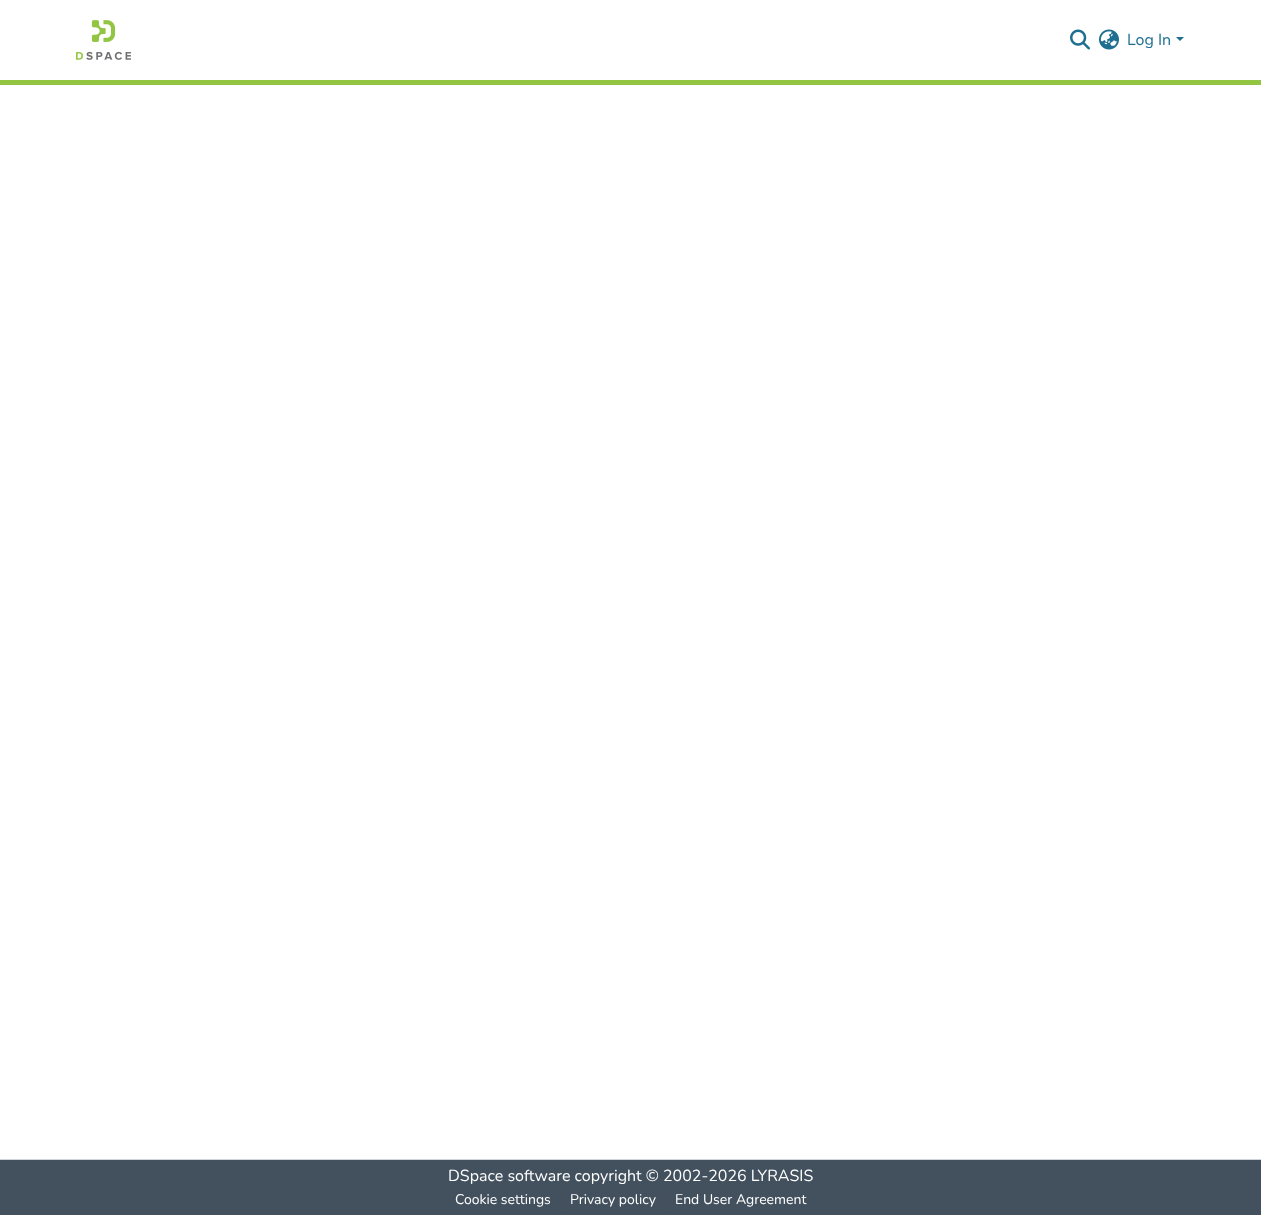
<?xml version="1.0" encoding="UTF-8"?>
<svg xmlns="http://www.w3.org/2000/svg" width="1261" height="1215">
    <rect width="100%" height="100%" fill="#FFFFFF"/>
    <rect x="0" y="80" width="1261" height="5" fill="#92C642"/>
    <image x="76" y="20" width="55" height="40" href="img_01.png"/>
    <image x="1070" y="29" width="20" height="21" href="img_02.png"/>
    <image x="1099" y="29" width="20" height="21" href="img_03.png"/>
    <text x="1127" y="45" font-family="Nunito" font-size="16" fill="#1E6F90">Log In</text>
    <path d="M 1176 37 H 1184 L 1180 41 Z" fill="#1E6F90"/>
    <rect x="0" y="1160" width="1261" height="55" fill="#43515F"/>
    <rect x="0" y="1159" width="1261" height="1" fill="#CED4DA"/>
    <text x="448" y="1181" font-family="Nunito" font-size="16" fill="#FFFFFF">DSpace software copyright © 2002-2026 LYRASIS</text>
    <text x="455" y="1204" font-family="Nunito" font-size="14" fill="#FFFFFF">Cookie settings</text>
    <rect x="560" y="1188" width="1" height="23" fill="#495057"/>
    <text x="570" y="1204" font-family="Nunito" font-size="14" fill="#FFFFFF">Privacy policy</text>
    <rect x="665" y="1188" width="1" height="23" fill="#495057"/>
    <text x="675" y="1204" font-family="Nunito" font-size="14" fill="#FFFFFF">End User Agreement</text>
</svg>
